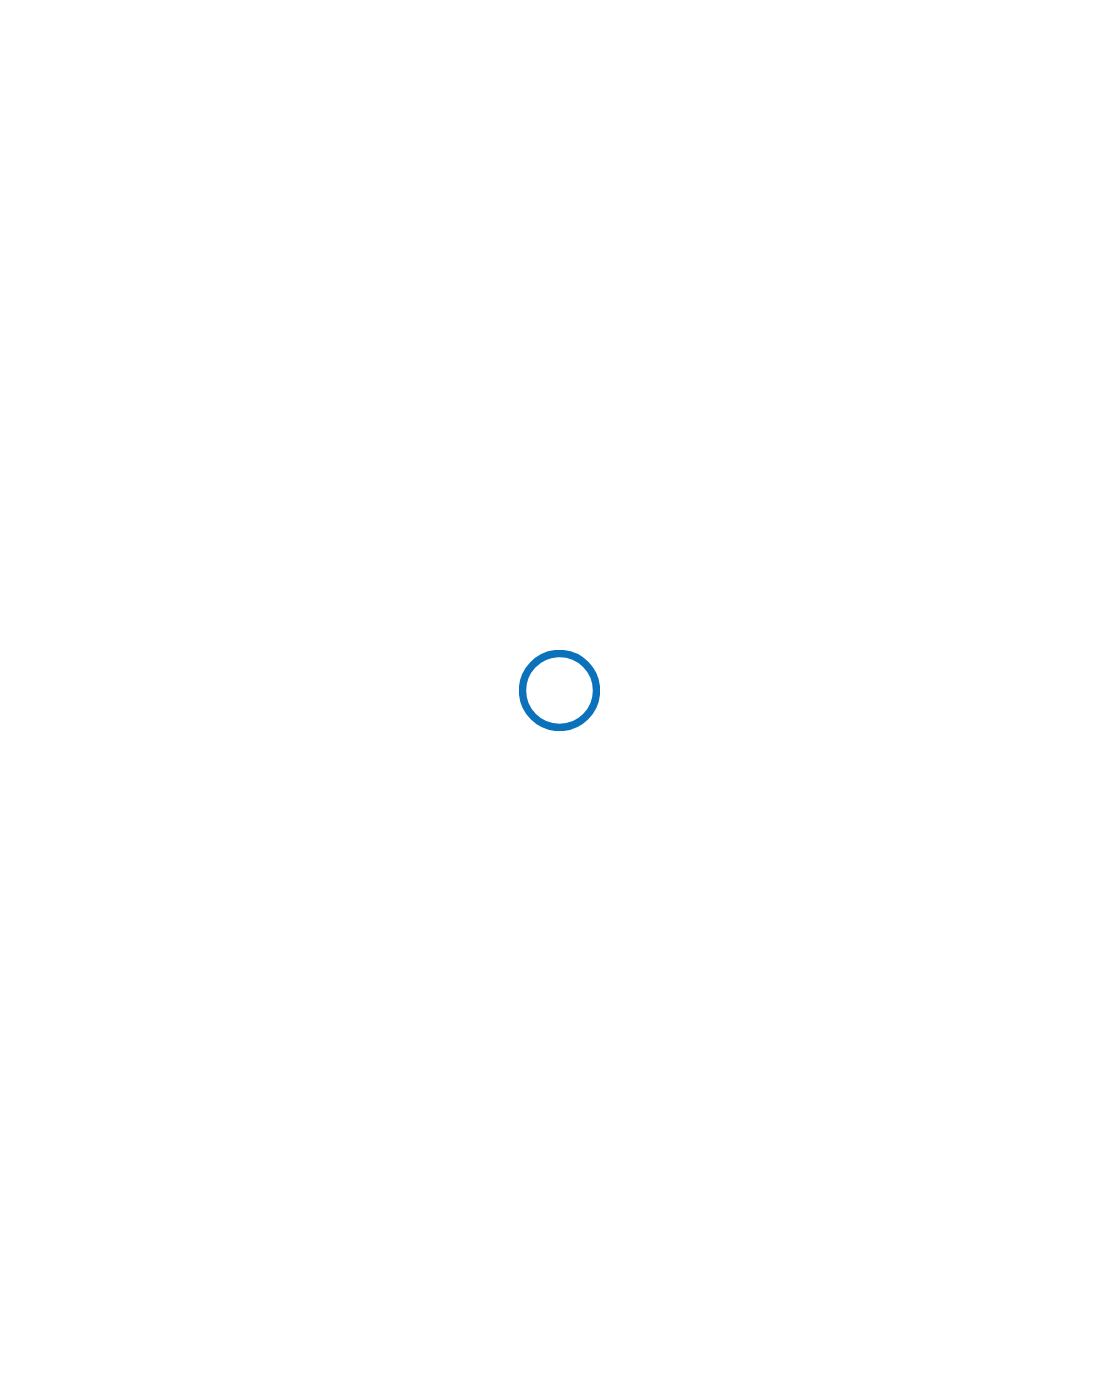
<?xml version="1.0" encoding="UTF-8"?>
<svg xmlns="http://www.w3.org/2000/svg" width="1118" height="1381">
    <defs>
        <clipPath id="clip1"><rect x="519" y="650" width="81" height="81"/></clipPath>
    </defs>
    <rect width="100%" height="100%" fill="#FFFFFF"/>
    <g clip-path="url(#clip1)">
        <path d="M 559.5 653.5 C 580 653.5 596.5 670 596.5 690.5 C 596.5 711 580 727.5 559.5 727.5 C 539 727.5 522.5 711 522.5 690.5 C 522.5 671 538 654.5 557.5 653.5" fill="none" stroke="#0A71BA" stroke-width="7.4" stroke-linecap="round"/>
    </g>
</svg>
